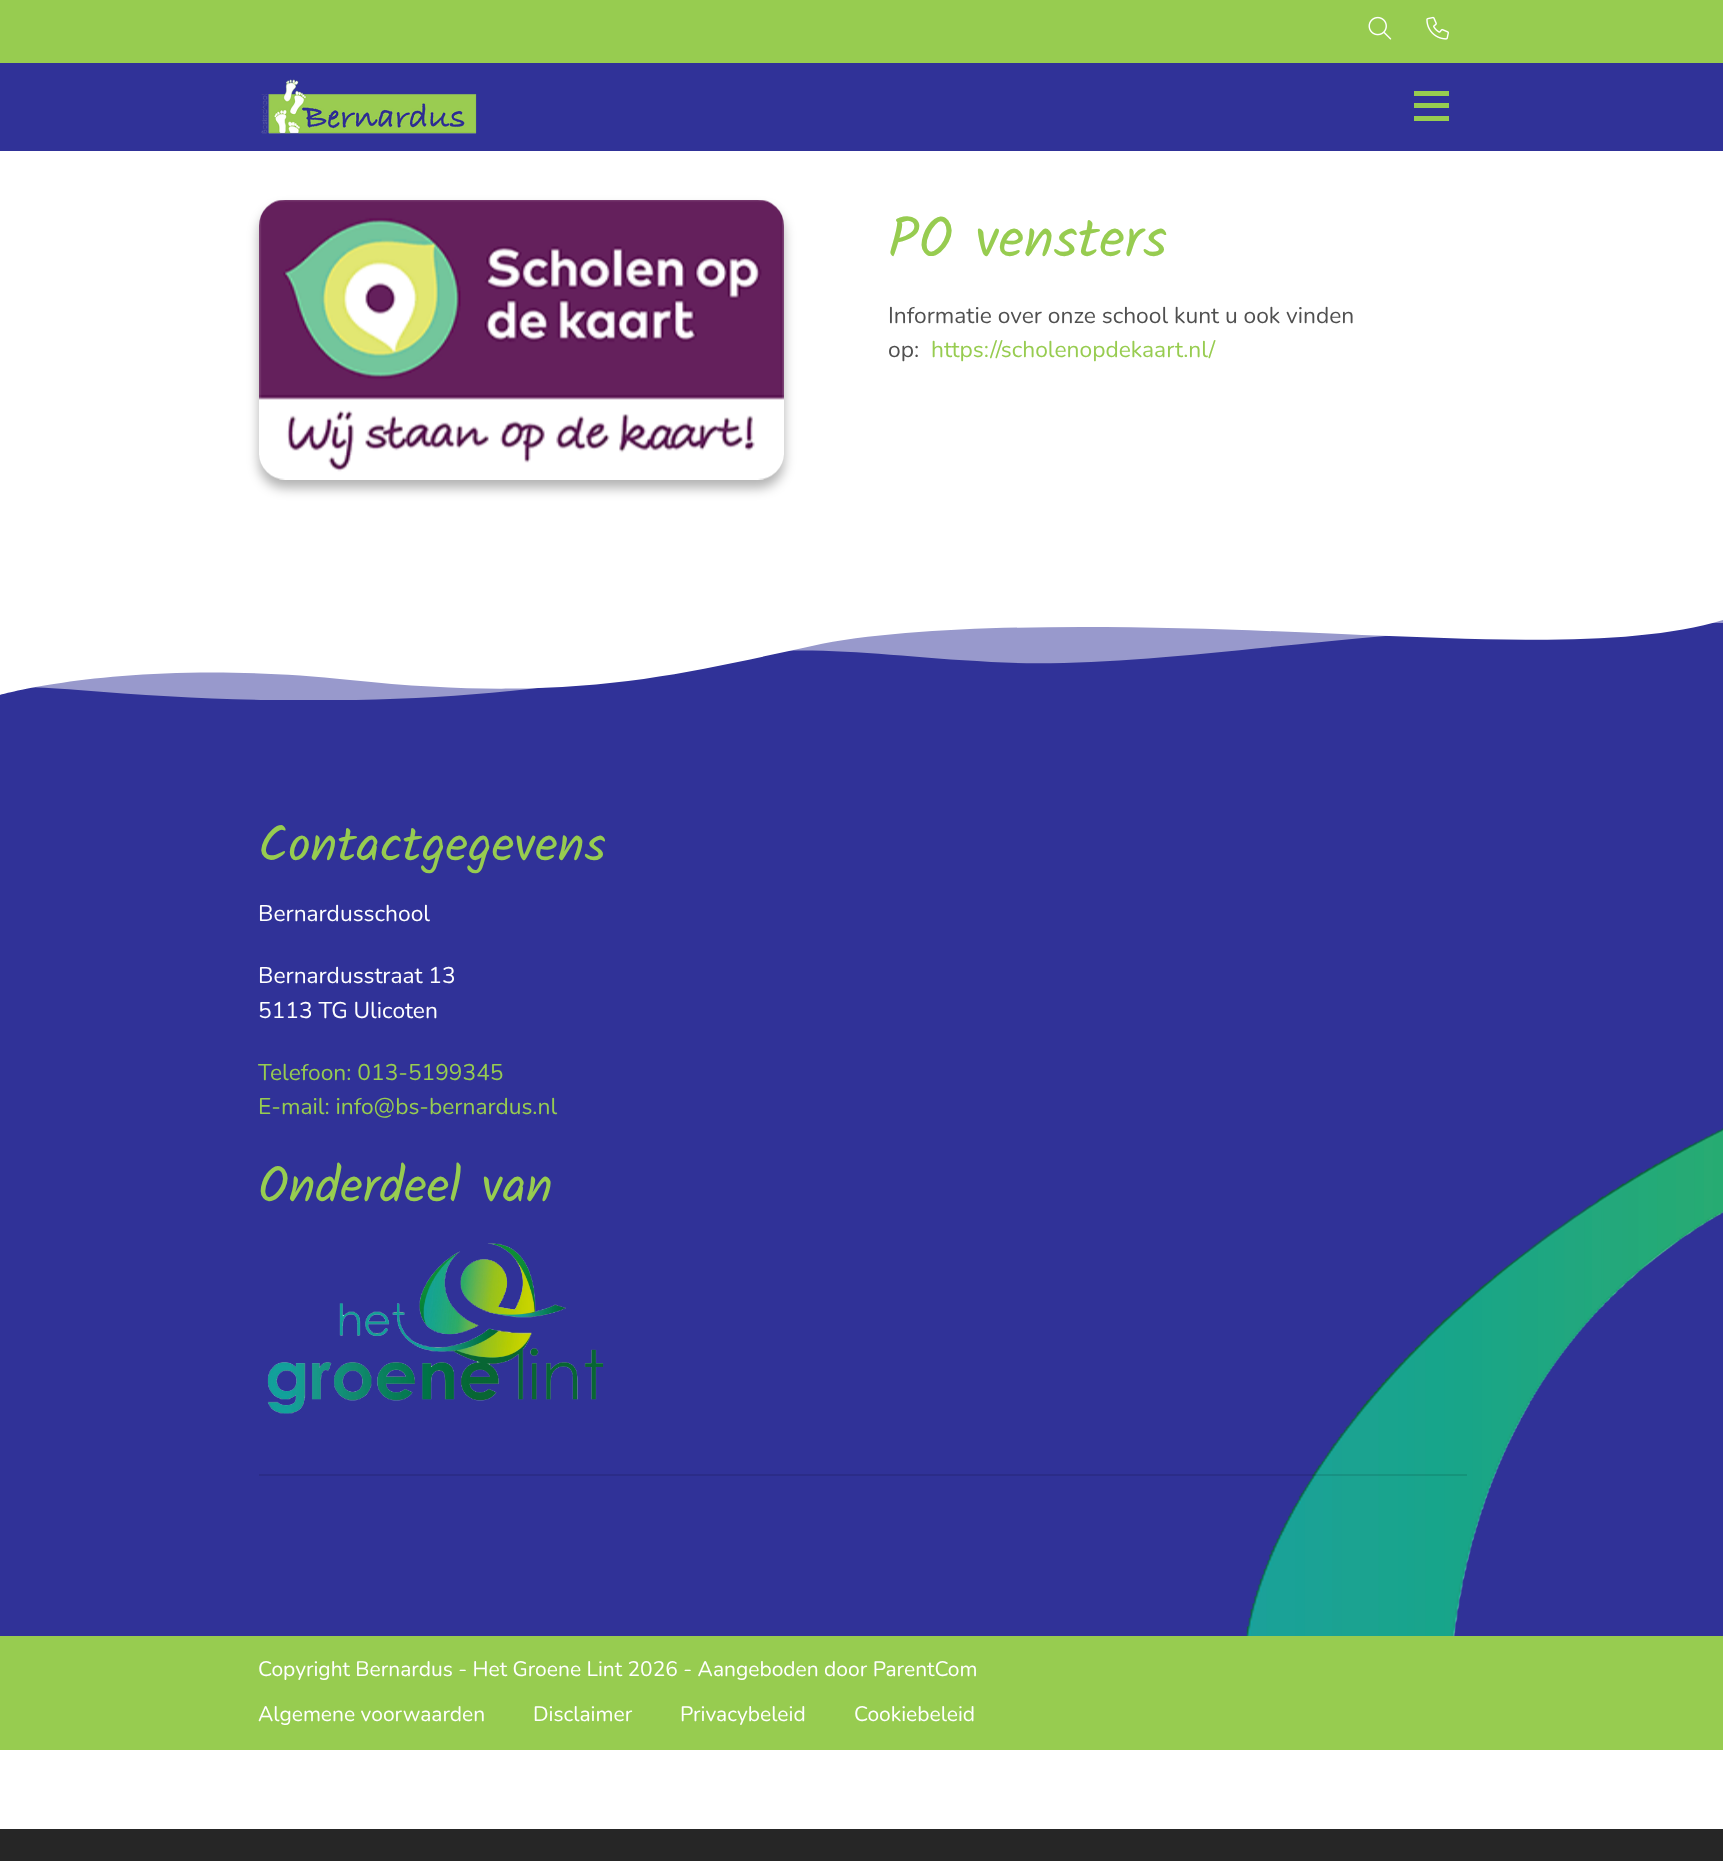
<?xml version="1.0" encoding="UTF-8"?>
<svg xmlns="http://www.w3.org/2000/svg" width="1723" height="1861">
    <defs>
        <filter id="blur1" x="-50%" y="-200%" width="200%" height="500%"><feGaussianBlur stdDeviation="6"/></filter>
        <clipPath id="clip1"><rect x="0" y="581" width="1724" height="119"/></clipPath>
    </defs>
    <rect width="100%" height="100%" fill="#FFFFFF"/>
    <rect x="0" y="63" width="1723" height="88" fill="#303298"/>
    <rect x="0" y="0" width="1723" height="63" fill="#97CC50"/>
    <image x="1368" y="16" width="24" height="24" href="img_01.png"/>
    <image x="1426" y="16" width="23" height="24" href="img_02.png"/>
    <image x="261" y="79" width="216" height="55" href="img_03.png"/>
    <rect x="1414" y="103" width="35" height="5" fill="#97CC50"/>
    <rect x="1414" y="91" width="35" height="5" fill="#97CC50"/>
    <rect x="1414" y="116" width="35" height="5" fill="#97CC50"/>
    <rect x="259" y="208" width="525" height="280" rx="26" fill="#000000" fill-opacity="0.3" filter="url(#blur1)"/>
    <image x="259" y="200" width="525" height="280" href="img_04.png"/>
    <text x="888" y="257" font-family="Kalam" font-size="56" fill="#97CC50">PO vensters</text>
    <text font-family="Nunito" font-size="22.75" font-weight="200" fill="#505050">
        <tspan x="888" y="323">Informatie over onze school kunt u ook vinden</tspan>
        <tspan x="888" y="357">op:</tspan>
    </text>
    <text x="931" y="357" font-family="Nunito" font-size="22.75" font-weight="200" fill="#97CC50">https://scholenopdekaart.nl/</text>
    <rect x="0" y="620" width="1723" height="1016" fill="#303298"/>
    <image x="1246" y="1127" width="477" height="509" href="img_05.png"/>
    <g clip-path="url(#clip1)">
        <path d="M 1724 623 C 1394 617 1171 672 991 662 C 858 655 786 637 647 669 C 507 702 298 709 78 690 C 25 686 -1 686 0 691 V 581 H 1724 Z" fill="#FFFFFF" fill-opacity="0.5"/>
    </g>
    <path d="M 1723 620 C 1636 647 1494 640 1362 635 C 1229 629 951 616 812 646 C 673 676 569 703 350 680 C 132 657 0 695 0 695 V 581 H 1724 Z" fill="#FFFFFF"/>
    <text x="258" y="861" font-family="Kalam" font-size="50" fill="#97CC50">Contactgegevens</text>
    <text x="258" y="921" font-family="Nunito" font-size="22.75" font-weight="200" fill="#FFFFFF">Bernardusschool</text>
    <text font-family="Nunito" font-size="22.75" font-weight="200" fill="#FFFFFF">
        <tspan x="258" y="983">Bernardusstraat 13</tspan>
        <tspan x="258" y="1018">5113 TG Ulicoten</tspan>
    </text>
    <text font-family="Nunito" font-size="22.75" font-weight="200" fill="#97CC50">
        <tspan x="258" y="1080">Telefoon: 013-5199345</tspan>
        <tspan x="258" y="1114">E-mail: info@bs-bernardus.nl</tspan>
    </text>
    <text x="258" y="1202" font-family="Kalam" font-size="50" fill="#97CC50">Onderdeel van</text>
    <image x="267" y="1243" width="337" height="171" href="img_06.png"/>
    <rect x="259" y="1474" width="1208" height="2" fill="#000000" fill-opacity="0.1"/>
    <rect x="0" y="1636" width="1723" height="114" fill="#97CC50"/>
    <text x="258" y="1676" font-family="Nunito" font-size="21" font-weight="200" fill="#FFFFFF">Copyright Bernardus - Het Groene Lint 2026 - Aangeboden door ParentCom</text>
    <text x="258" y="1721" font-family="Nunito" font-size="21" font-weight="200" fill="#FFFFFF">Algemene voorwaarden</text>
    <text x="533" y="1721" font-family="Nunito" font-size="21" font-weight="200" fill="#FFFFFF">Disclaimer</text>
    <text x="680" y="1721" font-family="Nunito" font-size="21" font-weight="200" fill="#FFFFFF">Privacybeleid</text>
    <text x="854" y="1721" font-family="Nunito" font-size="21" font-weight="200" fill="#FFFFFF">Cookiebeleid</text>
    <rect x="0" y="1829" width="1723" height="32" fill="#262626"/>
</svg>
